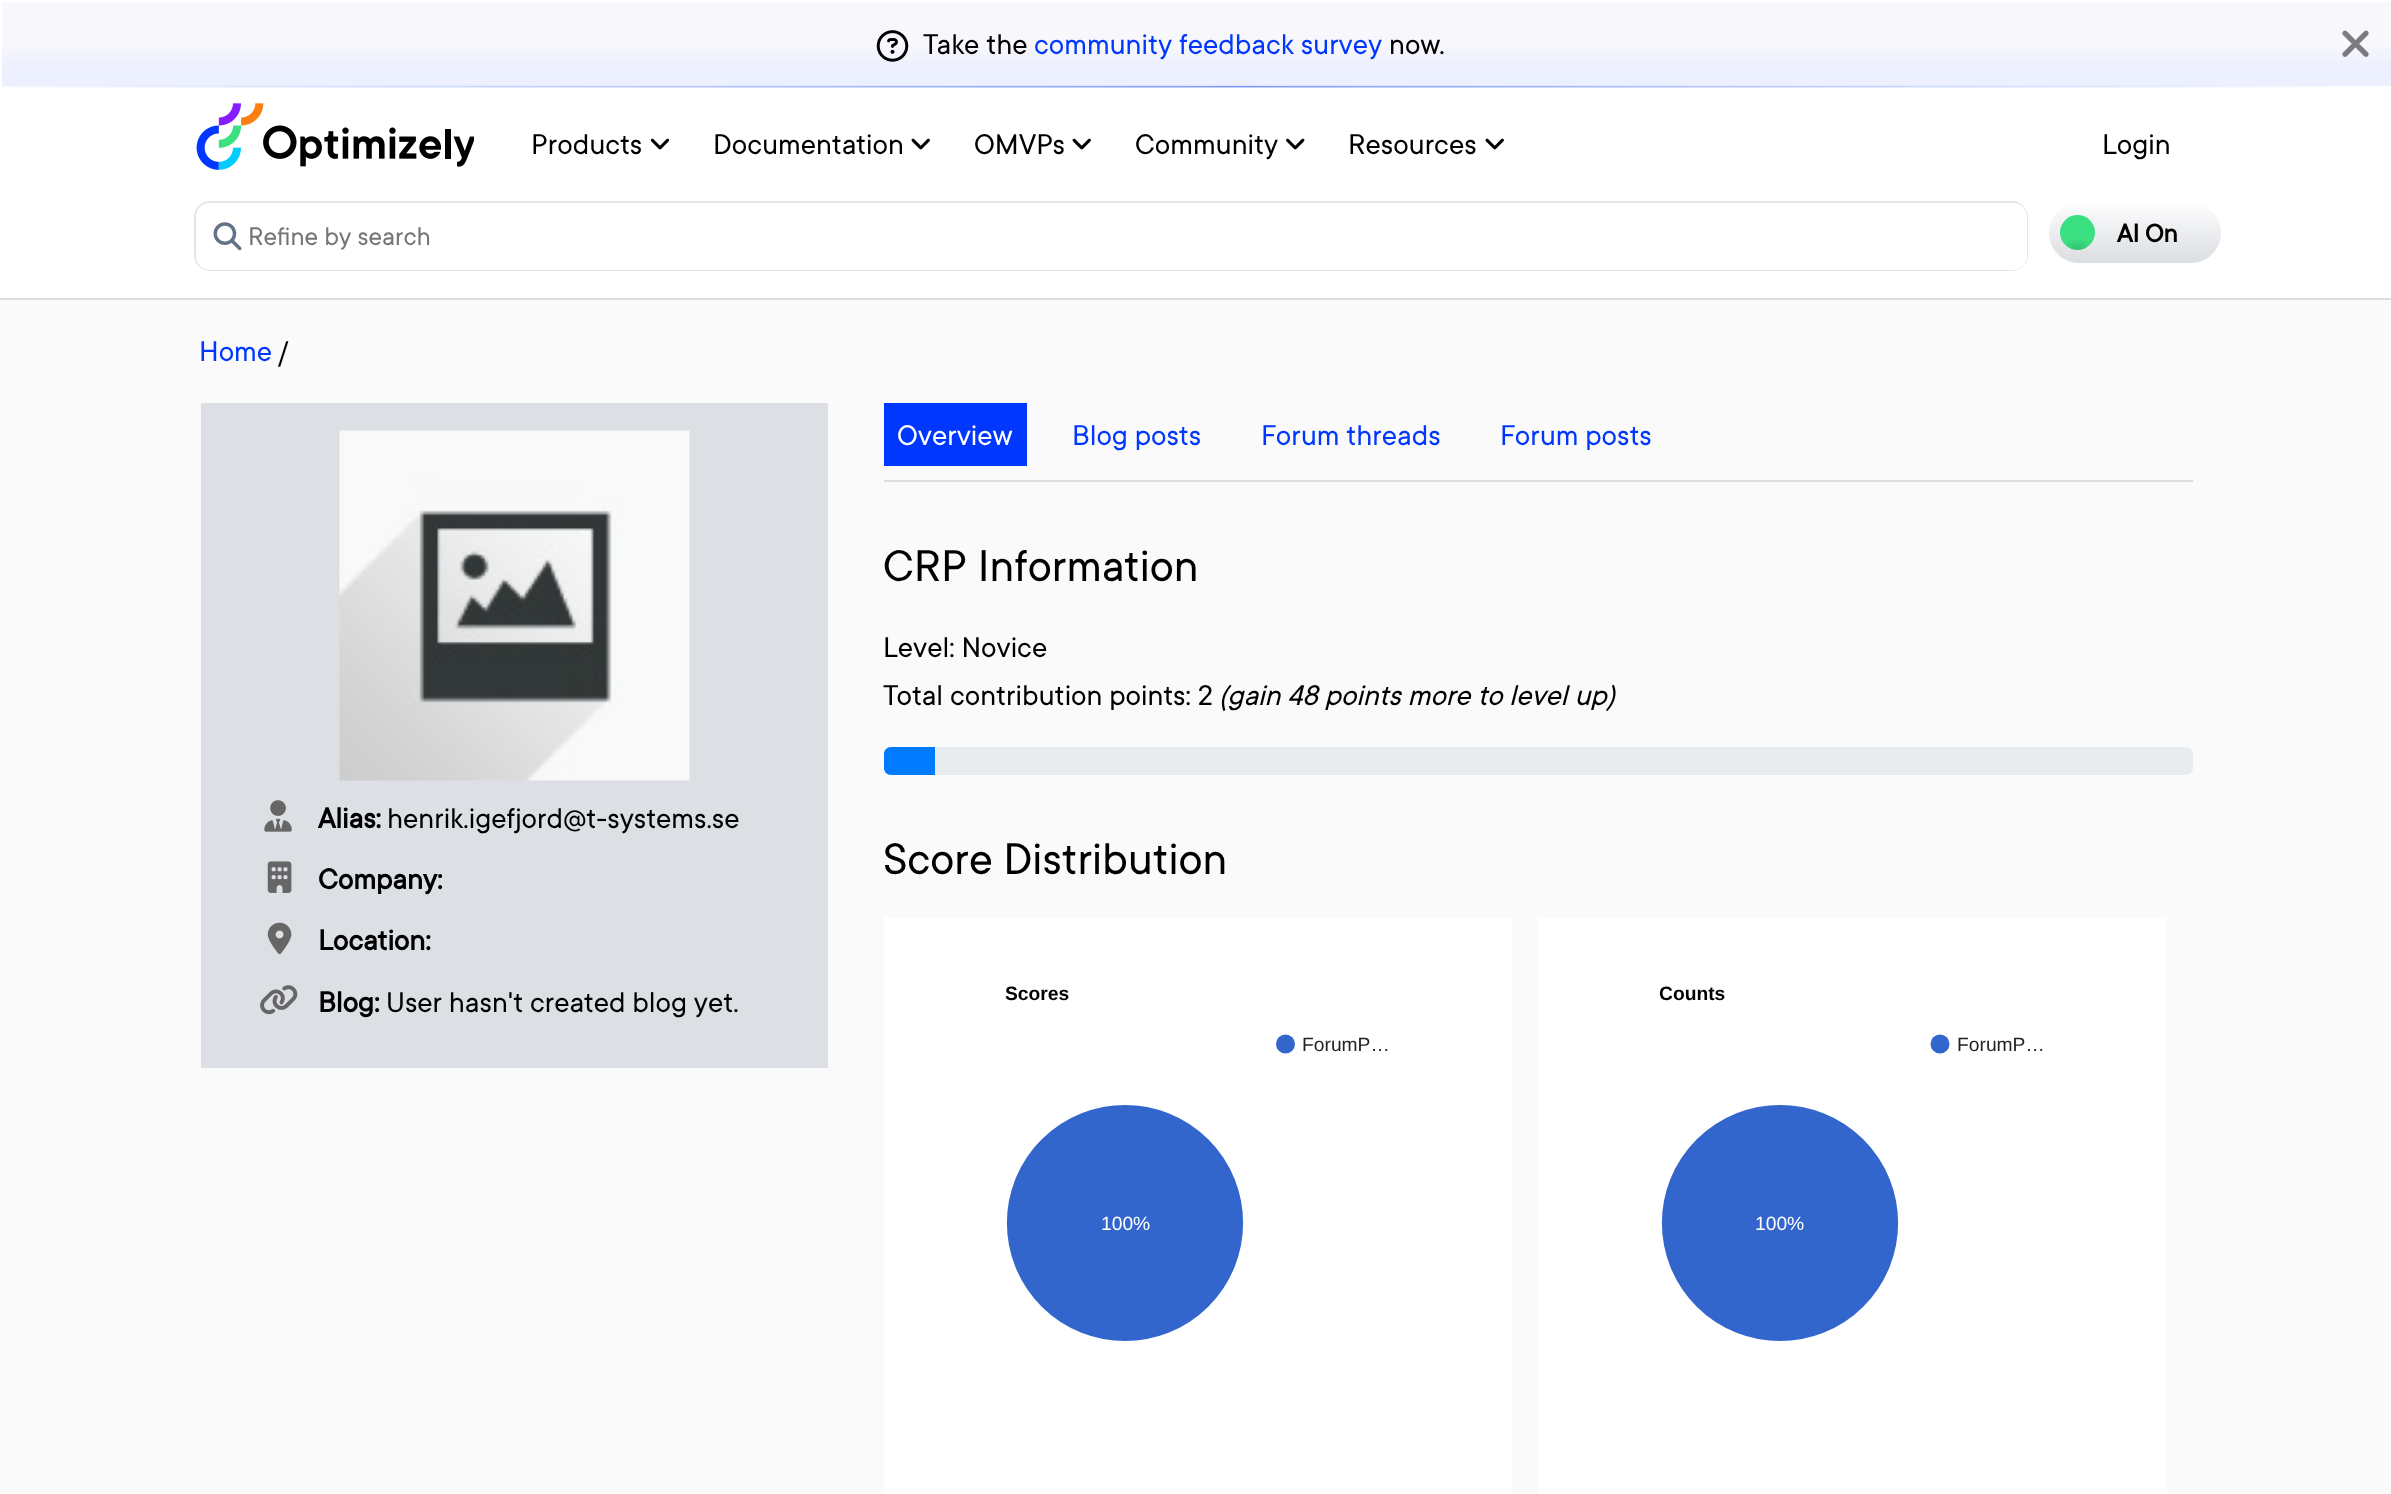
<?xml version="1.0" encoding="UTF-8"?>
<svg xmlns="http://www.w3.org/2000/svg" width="2391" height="1494">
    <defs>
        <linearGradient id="g1" gradientUnits="userSpaceOnUse" x1="1196" y1="1.5" x2="1196" y2="103"><stop offset="0.42" stop-color="#F8F8FC"/><stop offset="1" stop-color="#CCD7FF" stop-opacity="0.3"/></linearGradient>
        <linearGradient id="g2" gradientUnits="userSpaceOnUse" x1="2135" y1="203" x2="2135" y2="263"><stop offset="0" stop-color="#FDFDFE"/><stop offset="1" stop-color="#DADDE1"/></linearGradient>
        <radialGradient id="g3" gradientUnits="userSpaceOnUse" cx="2077" cy="255" r="39"><stop offset="0" stop-color="#2FB367"/><stop offset="0.44" stop-color="#3BE081"/></radialGradient>
    </defs>
    <rect width="100%" height="100%" fill="#FAFAFA"/>
    <rect x="0" y="0" width="2391" height="298" fill="#FFFFFF"/>
    <image x="2" y="85" width="2344" height="3" href="img_01.png"/>
    <rect x="2" y="2" width="2389" height="84" fill="url(#g1)"/>
    <image x="876" y="30" width="33" height="32" href="img_02.png"/>
    <text x="923" y="54" font-family="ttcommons" font-size="31.5" fill="#000000">Take the</text>
    <text x="1034" y="54" font-family="ttcommons" font-size="31.5" fill="#0037FF">community feedback survey</text>
    <text x="1389" y="54" font-family="ttcommons" font-size="31.5" fill="#000000">now.</text>
    <image x="2342" y="30" width="27" height="27" href="img_03.png"/>
    <rect x="0" y="298" width="2391" height="2" fill="#DDDDDD"/>
    <image x="196" y="103" width="278" height="67" href="img_04.png"/>
    <text x="531" y="154" font-family="ttcommons" font-size="31.5" fill="#000000">Products</text>
    <image x="650" y="138" width="20" height="12" href="img_05.png"/>
    <text x="713" y="154" font-family="ttcommons" font-size="31.5" fill="#000000">Documentation</text>
    <image x="911" y="138" width="19" height="12" href="img_06.png"/>
    <text x="974" y="154" font-family="ttcommons" font-size="31.5" fill="#000000">OMVPs</text>
    <image x="1072" y="138" width="19" height="12" href="img_06.png"/>
    <text x="1135" y="154" font-family="ttcommons" font-size="31.5" fill="#000000">Community</text>
    <image x="1286" y="138" width="19" height="12" href="img_07.png"/>
    <text x="1348" y="154" font-family="ttcommons" font-size="31.5" fill="#000000">Resources</text>
    <image x="1485" y="138" width="19" height="12" href="img_06.png"/>
    <text x="2102" y="154" font-family="ttcommons" font-size="31.5" fill="#000000">Login</text>
    <rect x="195" y="202" width="1832" height="68" rx="15" fill="none" stroke="#E5E5E5" stroke-width="2"/>
    <rect x="196" y="203" width="1831" height="67" rx="14" fill="#FFFFFF"/>
    <image x="213" y="222" width="29" height="29" href="img_08.png"/>
    <text x="248" y="245" font-family="ttcommons" font-size="28" fill="#757575">Refine by search</text>
    <rect x="2049" y="203" width="172" height="60" rx="30" fill="url(#g2)"/>
    <circle cx="2077.5" cy="232.5" r="17.5" fill="url(#g3)"/>
    <text x="2117" y="242" font-family="ttcommons" font-size="28" font-weight="700" fill="#000000">AI On</text>
    <text x="199" y="361" font-family="ttcommons" font-size="31.5" fill="#0037FF">Home</text>
    <text x="278" y="361" font-family="ttcommons" font-size="31.5" fill="#000000">/</text>
    <rect x="201" y="403" width="627" height="665" fill="#DCDFE3"/>
    <image x="339" y="430" width="351" height="351" href="img_09.png"/>
    <image x="264" y="800" width="28" height="32" href="img_10.png"/>
    <text x="318" y="828" font-family="ttcommons" font-size="31.5" font-weight="700" fill="#000000">Alias:</text>
    <text x="387" y="828" font-family="ttcommons" font-size="31.5" fill="#000000">henrik.igefjord@t-systems.se</text>
    <image x="267" y="861" width="25" height="32" href="img_11.png"/>
    <text x="318" y="889" font-family="ttcommons" font-size="31.5" font-weight="700" fill="#000000">Company:</text>
    <image x="267" y="922" width="25" height="33" href="img_12.png"/>
    <text x="318" y="950" font-family="ttcommons" font-size="31.5" font-weight="700" fill="#000000">Location:</text>
    <image x="260" y="985" width="38" height="30" href="img_13.png"/>
    <text x="318" y="1012" font-family="ttcommons" font-size="31.5" font-weight="700" fill="#000000">Blog:</text>
    <text x="386" y="1012" font-family="ttcommons" font-size="31.5" fill="#000000">User hasn't created blog yet.</text>
    <rect x="884" y="480" width="1309" height="2" fill="#DDDDDD"/>
    <rect x="884" y="403" width="143" height="63" fill="#0037FF"/>
    <text x="897" y="445" font-family="ttcommons" font-size="31.5" fill="#FFFFFF">Overview</text>
    <text x="1072" y="445" font-family="ttcommons" font-size="31.5" fill="#0037FF">Blog posts</text>
    <text x="1261" y="445" font-family="ttcommons" font-size="31.5" fill="#0037FF">Forum threads</text>
    <text x="1500" y="445" font-family="ttcommons" font-size="31.5" fill="#0037FF">Forum posts</text>
    <text x="883" y="581" font-family="ttcommons" font-size="49" fill="#000000">CRP Information</text>
    <text font-family="ttcommons" font-size="31.5" fill="#000000">
        <tspan x="883" y="657">Level: Novice</tspan>
        <tspan x="883" y="705">Total contribution points: 2</tspan>
    </text>
    <text x="1219" y="705" font-family="ttcommons" font-size="31.5" font-style="italic" fill="#000000">(gain 48 points more to level up)</text>
    <rect x="884" y="747" width="1309" height="28" rx="7" fill="#E9ECEF"/>
    <path d="M 891 747 H 935 V 775 H 891 C 887 775 884 772 884 768 V 754 C 884 750 887 747 891 747 Z" fill="#007BFF"/>
    <text x="883" y="874" font-family="ttcommons" font-size="49" fill="#000000">Score Distribution</text>
    <rect x="884" y="917" width="628" height="577" fill="#FFFFFF"/>
    <text x="1005" y="1000" font-family="Liberation Sans" font-size="19.25" font-weight="700" fill="#000000">Scores</text>
    <text x="1302" y="1051" font-family="Liberation Sans" font-size="19.25" fill="#222222">ForumP…</text>
    <circle cx="1285.5" cy="1044" r="9.5" fill="#3366CC"/>
    <circle cx="1125" cy="1223" r="119" fill="#3366CC" stroke="#FFFFFF" stroke-width="1.8"/>
    <text x="1101" y="1230" font-family="Liberation Sans" font-size="19.25" fill="#FFFFFF">100%</text>
    <rect x="1538" y="917" width="629" height="577" fill="#FFFFFF"/>
    <text x="1659" y="1000" font-family="Liberation Sans" font-size="19.25" font-weight="700" fill="#000000">Counts</text>
    <text x="1957" y="1051" font-family="Liberation Sans" font-size="19.25" fill="#222222">ForumP…</text>
    <circle cx="1940" cy="1044" r="9.5" fill="#3366CC"/>
    <circle cx="1780" cy="1223" r="119" fill="#3366CC" stroke="#FFFFFF" stroke-width="1.8"/>
    <text x="1755" y="1230" font-family="Liberation Sans" font-size="19.25" fill="#FFFFFF">100%</text>
</svg>
